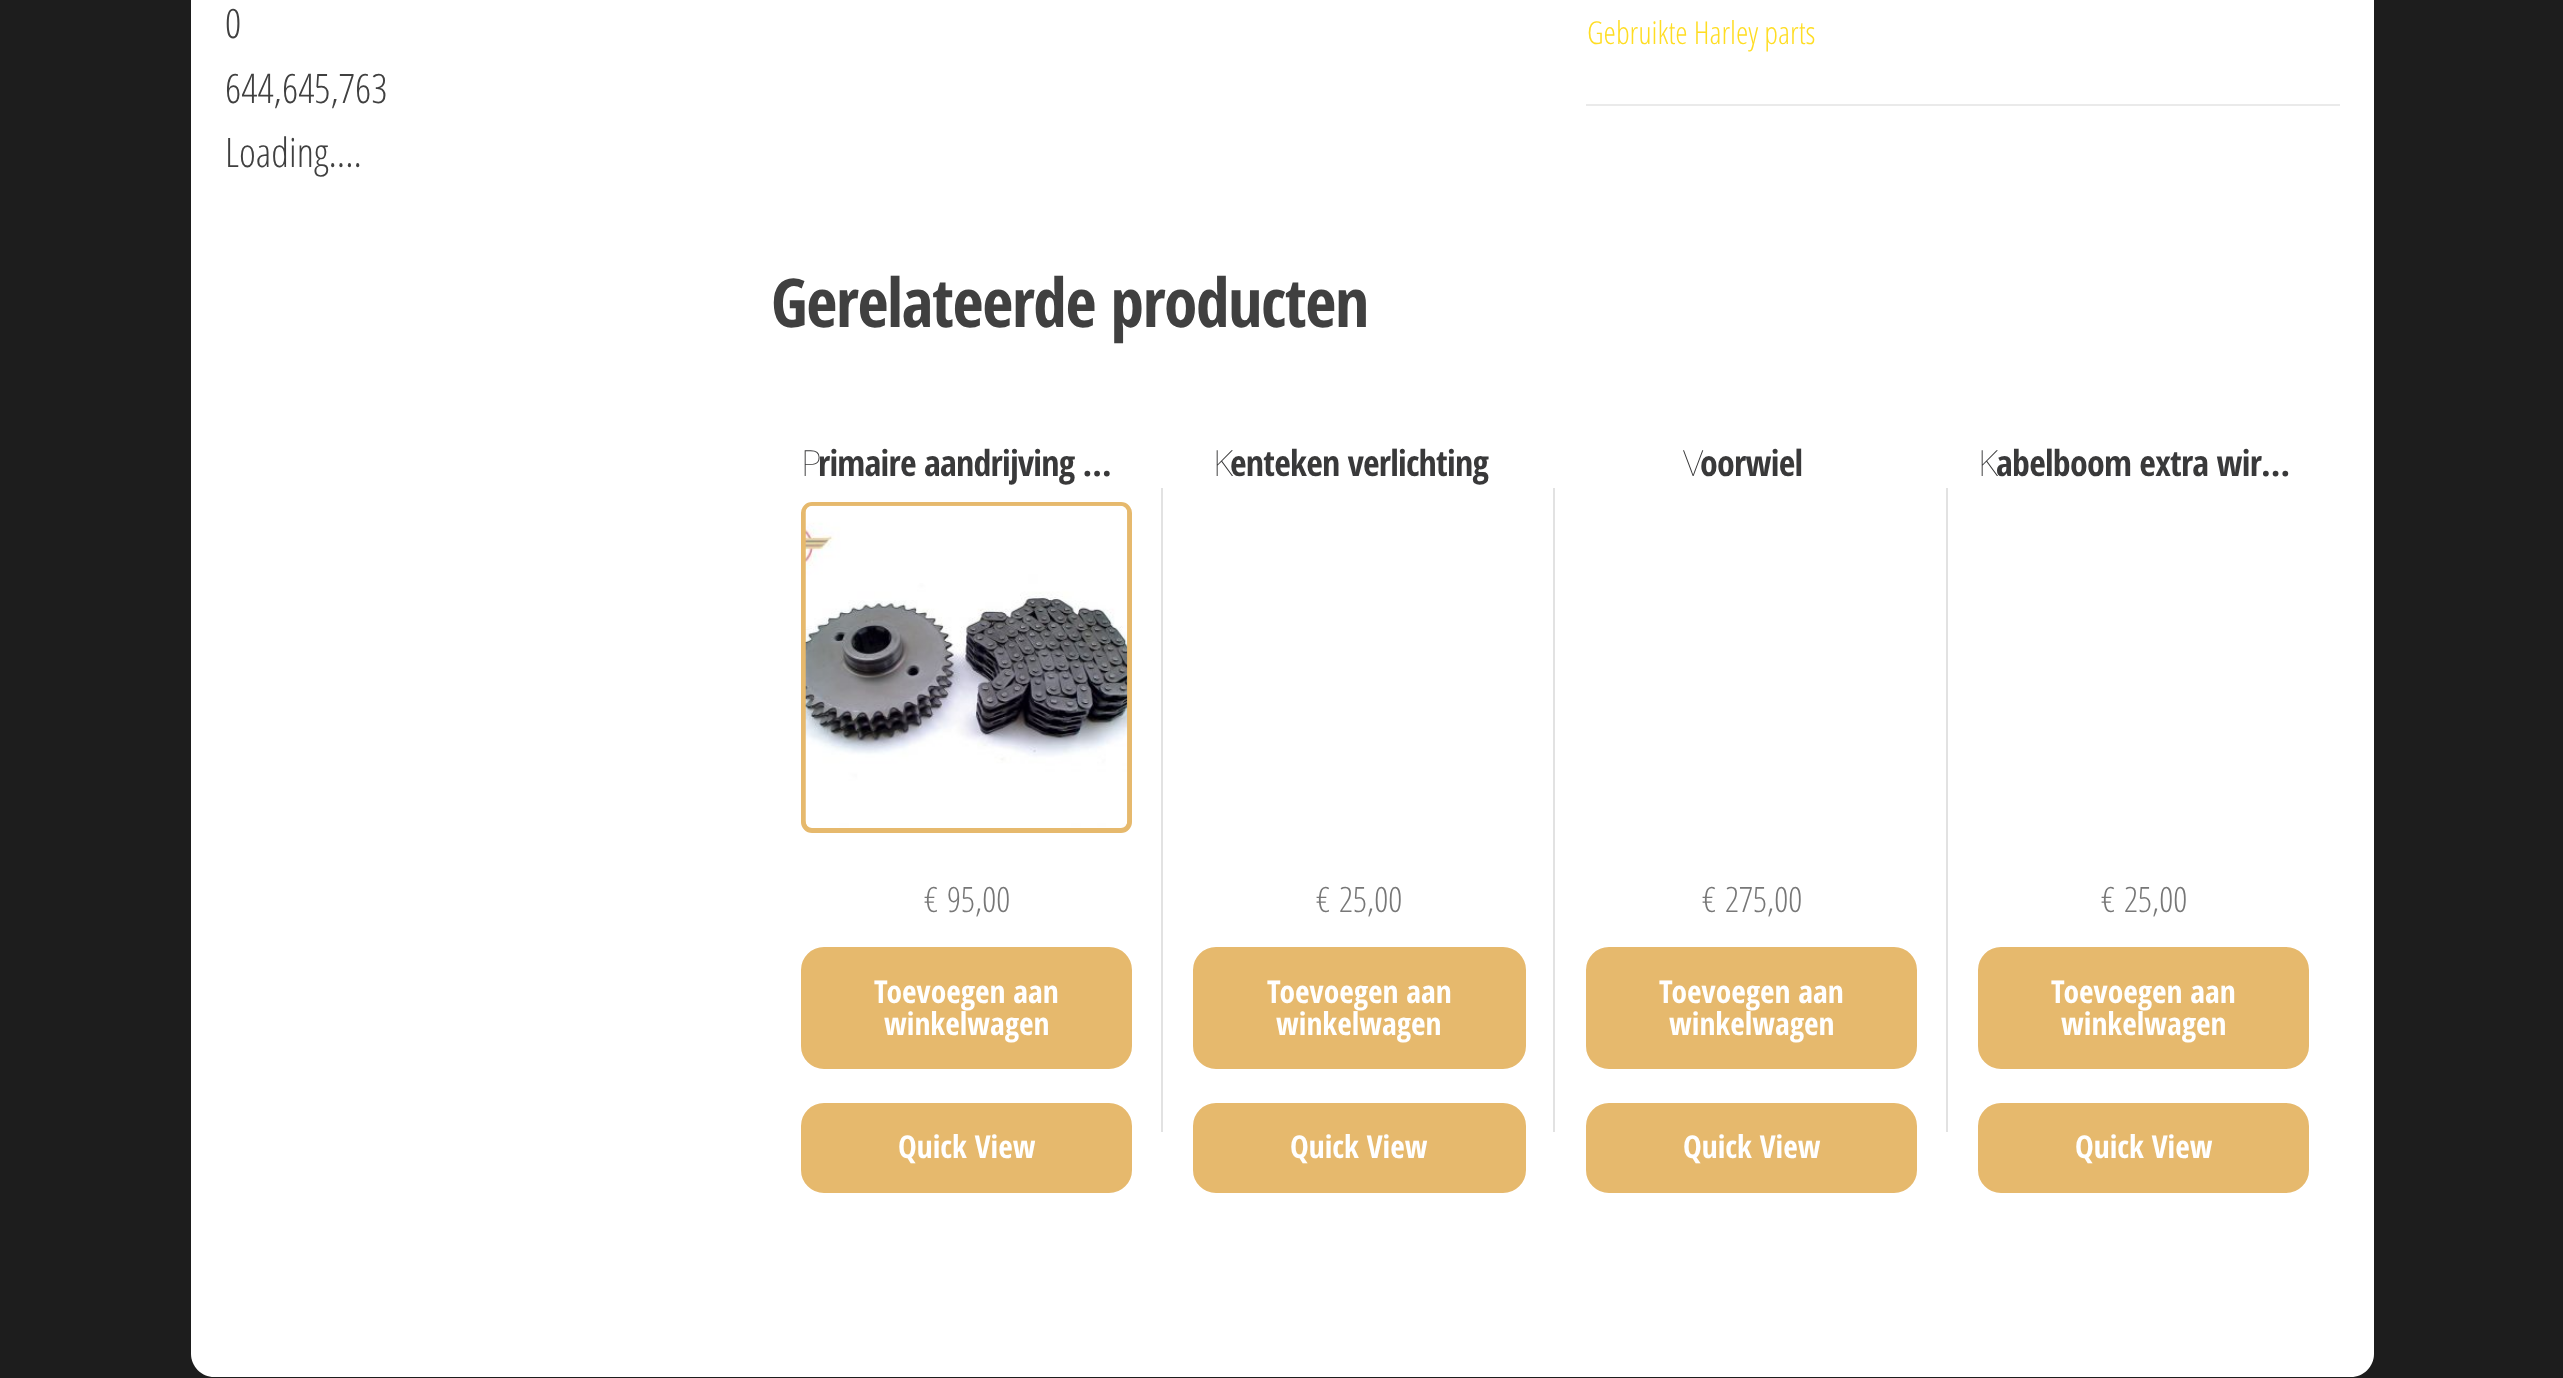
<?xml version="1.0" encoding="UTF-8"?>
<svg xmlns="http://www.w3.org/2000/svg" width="2563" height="1378">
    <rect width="100%" height="100%" fill="#1D1D1D"/>
    <path d="M 191 -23 H 2374 V 1354 C 2374 1366.5 2363.5 1377 2351 1377 H 214 C 201.5 1377 191 1366.5 191 1354 Z" fill="#FFFFFF"/>
    <text font-family="Open Sans Condensed" font-size="40.5" font-weight="300" fill="#404040">
        <tspan x="225" y="38">0</tspan>
        <tspan x="225" y="103">644,645,763</tspan>
        <tspan x="225" y="167">Loading....</tspan>
    </text>
    <rect x="1586" y="104" width="754" height="2" fill="#EAEAEA"/>
    <text x="1587" y="44" font-family="Open Sans Condensed" font-size="31.5" font-weight="300" fill="#FFDD22">Gebruikte Harley parts</text>
    <text x="771" y="327" font-family="Open Sans Condensed" font-size="67.5" font-weight="700" letter-spacing="-1.35" fill="#404040">Gerelateerde producten</text>
    <text x="801" y="476" font-family="Noto Sans" font-size="36" font-weight="100" letter-spacing="-0.75" fill="#39393A">P</text>
    <text x="818" y="476" font-family="Open Sans Condensed" font-size="36" font-weight="700" letter-spacing="-0.75" fill="#39393A">rimaire aandrijving …</text>
    <rect x="803.5" y="504.5" width="326" height="326" rx="8.5" fill="none" stroke="#E6B96D" stroke-width="5"/>
    <image x="805" y="505" width="323" height="322" href="img_01.png"/>
    <text x="924" y="912" font-family="Open Sans Condensed" font-size="35" font-weight="300" fill="#777777">€</text>
    <text x="947" y="912" font-family="Open Sans Condensed" font-size="35" font-weight="300" fill="#777777">95,00</text>
    <rect x="1161" y="488" width="2" height="644" fill="#E2E2E2"/>
    <rect x="802" y="948" width="329" height="120" rx="22" fill="#E6B96D" stroke="#E6B96D" stroke-width="2"/>
    <text x="874" y="1003" font-family="Open Sans Condensed" font-size="31.5" font-weight="700" fill="#FFFFFF">Toevoegen aan</text>
    <text x="884" y="1035" font-family="Open Sans Condensed" font-size="31.5" font-weight="700" fill="#FFFFFF">winkelwagen</text>
    <rect x="802" y="1104" width="329" height="88" rx="22" fill="#E6B96D" stroke="#E6B96D" stroke-width="2"/>
    <text x="898" y="1158" font-family="Open Sans Condensed" font-size="31.5" font-weight="700" fill="#FFFFFF">Quick View</text>
    <text x="1213" y="476" font-family="Noto Sans" font-size="36" font-weight="100" letter-spacing="-0.75" fill="#39393A">K</text>
    <text x="1230" y="476" font-family="Open Sans Condensed" font-size="36" font-weight="700" letter-spacing="-0.75" fill="#39393A">enteken verlichting</text>
    <text x="1316" y="912" font-family="Open Sans Condensed" font-size="35" font-weight="300" fill="#777777">€</text>
    <text x="1339" y="912" font-family="Open Sans Condensed" font-size="35" font-weight="300" fill="#777777">25,00</text>
    <rect x="1553" y="488" width="2" height="644" fill="#E2E2E2"/>
    <rect x="1194" y="948" width="331" height="120" rx="22" fill="#E6B96D" stroke="#E6B96D" stroke-width="2"/>
    <text x="1267" y="1003" font-family="Open Sans Condensed" font-size="31.5" font-weight="700" fill="#FFFFFF">Toevoegen aan</text>
    <text x="1276" y="1035" font-family="Open Sans Condensed" font-size="31.5" font-weight="700" fill="#FFFFFF">winkelwagen</text>
    <rect x="1194" y="1104" width="331" height="88" rx="22" fill="#E6B96D" stroke="#E6B96D" stroke-width="2"/>
    <text x="1290" y="1158" font-family="Open Sans Condensed" font-size="31.5" font-weight="700" fill="#FFFFFF">Quick View</text>
    <text x="1683" y="476" font-family="Noto Sans" font-size="36" font-weight="100" letter-spacing="-0.75" fill="#39393A">V</text>
    <text x="1700" y="476" font-family="Open Sans Condensed" font-size="36" font-weight="700" letter-spacing="-0.75" fill="#39393A">oorwiel</text>
    <text x="1702" y="912" font-family="Open Sans Condensed" font-size="35" font-weight="300" fill="#777777">€</text>
    <text x="1725" y="912" font-family="Open Sans Condensed" font-size="35" font-weight="300" fill="#777777">275,00</text>
    <rect x="1946" y="488" width="2" height="644" fill="#E2E2E2"/>
    <rect x="1587" y="948" width="329" height="120" rx="22" fill="#E6B96D" stroke="#E6B96D" stroke-width="2"/>
    <text x="1659" y="1003" font-family="Open Sans Condensed" font-size="31.5" font-weight="700" fill="#FFFFFF">Toevoegen aan</text>
    <text x="1669" y="1035" font-family="Open Sans Condensed" font-size="31.5" font-weight="700" fill="#FFFFFF">winkelwagen</text>
    <rect x="1587" y="1104" width="329" height="88" rx="22" fill="#E6B96D" stroke="#E6B96D" stroke-width="2"/>
    <text x="1683" y="1158" font-family="Open Sans Condensed" font-size="31.5" font-weight="700" fill="#FFFFFF">Quick View</text>
    <text x="1978" y="476" font-family="Noto Sans" font-size="36" font-weight="100" letter-spacing="-0.75" fill="#39393A">K</text>
    <text x="1996" y="476" font-family="Open Sans Condensed" font-size="36" font-weight="700" letter-spacing="-0.75" fill="#39393A">abelboom extra wir…</text>
    <text x="2101" y="912" font-family="Open Sans Condensed" font-size="35" font-weight="300" fill="#777777">€</text>
    <text x="2124" y="912" font-family="Open Sans Condensed" font-size="35" font-weight="300" fill="#777777">25,00</text>
    <rect x="1979" y="948" width="329" height="120" rx="22" fill="#E6B96D" stroke="#E6B96D" stroke-width="2"/>
    <text x="2051" y="1003" font-family="Open Sans Condensed" font-size="31.5" font-weight="700" fill="#FFFFFF">Toevoegen aan</text>
    <text x="2061" y="1035" font-family="Open Sans Condensed" font-size="31.5" font-weight="700" fill="#FFFFFF">winkelwagen</text>
    <rect x="1979" y="1104" width="329" height="88" rx="22" fill="#E6B96D" stroke="#E6B96D" stroke-width="2"/>
    <text x="2075" y="1158" font-family="Open Sans Condensed" font-size="31.5" font-weight="700" fill="#FFFFFF">Quick View</text>
</svg>
